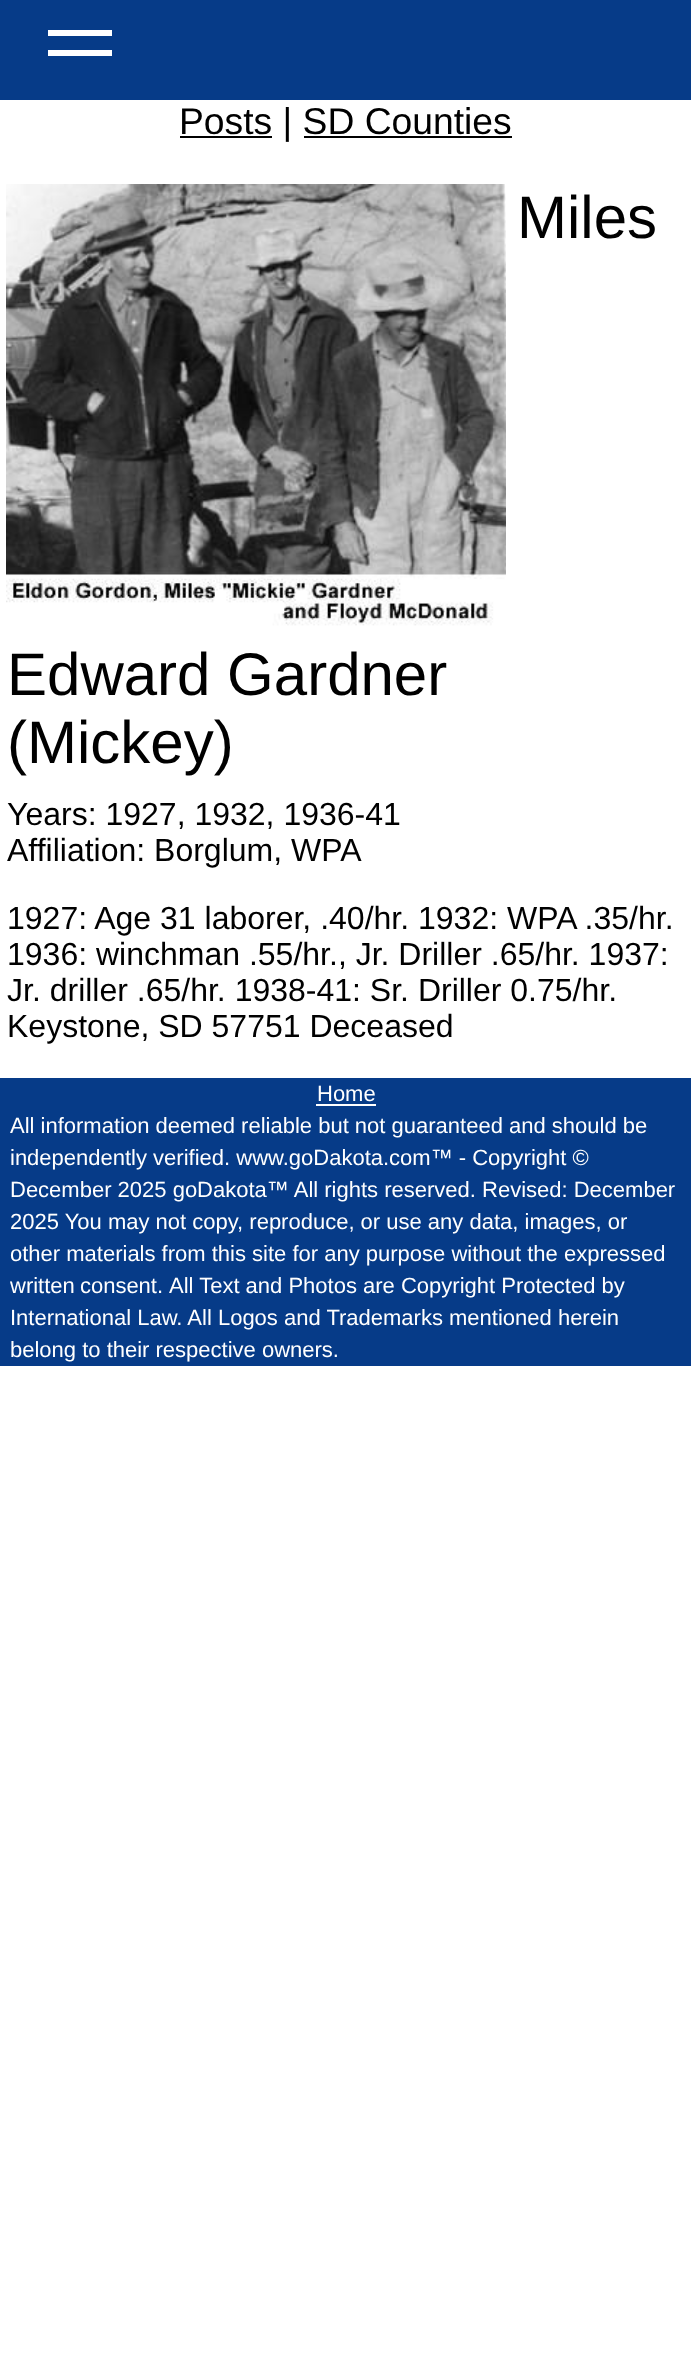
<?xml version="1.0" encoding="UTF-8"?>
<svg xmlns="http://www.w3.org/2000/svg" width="691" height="2353">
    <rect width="100%" height="100%" fill="#FFFFFF"/>
    <rect x="0" y="0" width="691" height="100" fill="#063B88"/>
    <rect x="48" y="30" width="64" height="6" fill="#FFFFFF"/>
    <rect x="48" y="50" width="64" height="6" fill="#FFFFFF"/>
    <rect x="180" y="136" width="92" height="2" fill="#000000"/>
    <text x="179" y="134" font-family="Liberation Sans" font-size="37.25" fill="#000000">Posts | SD Counties</text>
    <rect x="304" y="136" width="208" height="2" fill="#000000"/>
    <image x="6" y="184" width="500" height="442" href="img_01.png"/>
    <text x="517" y="238" font-family="Liberation Sans" font-size="60" fill="#000000">Miles</text>
    <text font-family="Liberation Sans" font-size="60" fill="#000000">
        <tspan x="7" y="695">Edward Gardner</tspan>
        <tspan x="7" y="763">(Mickey)</tspan>
    </text>
    <text font-family="Liberation Sans" font-size="32" fill="#000000">
        <tspan x="7" y="825">Years: 1927, 1932, 1936-41</tspan>
        <tspan x="7" y="861">Affiliation: Borglum, WPA</tspan>
    </text>
    <text font-family="Liberation Sans" font-size="32" fill="#000000">
        <tspan x="7" y="929">1927: Age 31 laborer, .40/hr. 1932: WPA .35/hr.</tspan>
        <tspan x="7" y="965">1936: winchman .55/hr., Jr. Driller .65/hr. 1937:</tspan>
        <tspan x="7" y="1001">Jr. driller .65/hr. 1938-41: Sr. Driller 0.75/hr.</tspan>
        <tspan x="7" y="1037">Keystone, SD 57751 Deceased</tspan>
    </text>
    <rect x="0" y="1078" width="691" height="288" fill="#063B88"/>
    <text x="317" y="1101" font-family="Liberation Sans" font-size="22" fill="#FFFFFF">Home</text>
    <rect x="316" y="1104" width="60" height="2" fill="#FFFFFF"/>
    <text font-family="Liberation Sans" font-size="22" fill="#FFFFFF">
        <tspan x="10" y="1133">All information deemed reliable but not guaranteed and should be</tspan>
        <tspan x="10" y="1165">independently verified. www.goDakota.com™ - Copyright ©</tspan>
        <tspan x="10" y="1197">December 2025 goDakota™ All rights reserved. Revised: December</tspan>
        <tspan x="10" y="1229">2025 You may not copy, reproduce, or use any data, images, or</tspan>
        <tspan x="10" y="1261">other materials from this site for any purpose without the expressed</tspan>
        <tspan x="10" y="1293" word-spacing="-1">written consent.</tspan>
    </text>
    <text x="169" y="1293" font-family="Liberation Sans" font-size="22" fill="#FFFFFF">All Text and Photos are Copyright Protected by</text>
    <text font-family="Liberation Sans" font-size="22" fill="#FFFFFF">
        <tspan x="10" y="1325">International Law. All Logos and Trademarks mentioned herein</tspan>
        <tspan x="10" y="1357">belong to their respective owners.</tspan>
    </text>
</svg>
